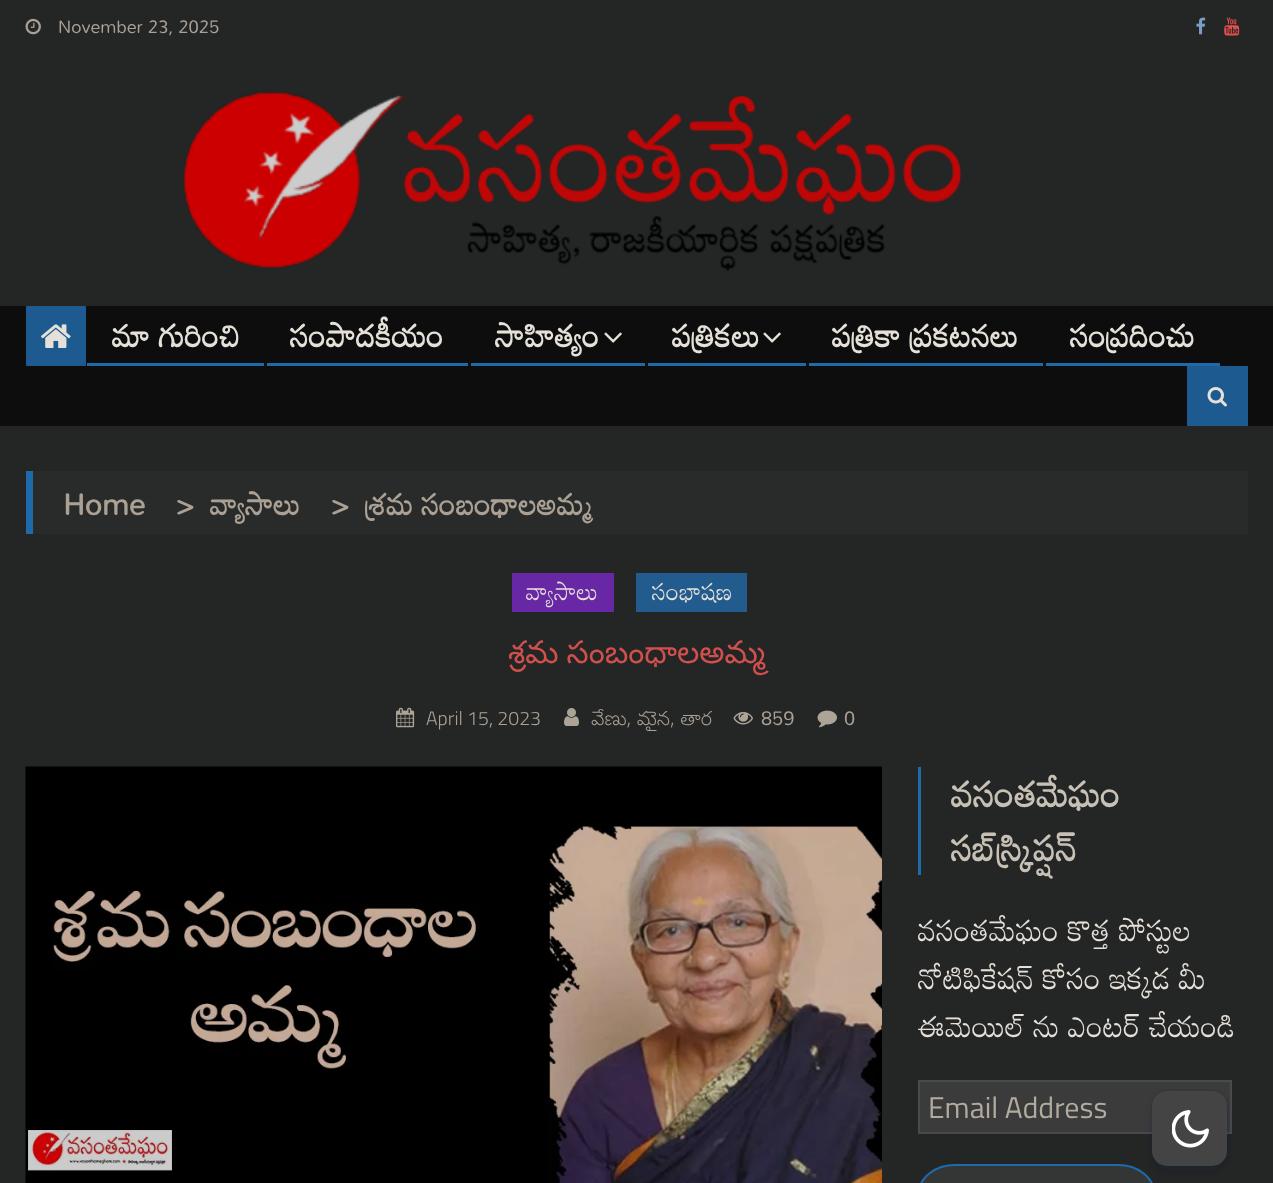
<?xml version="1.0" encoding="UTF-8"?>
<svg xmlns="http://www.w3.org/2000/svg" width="1273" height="1183">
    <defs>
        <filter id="blur1" x="-50%" y="-200%" width="200%" height="500%"><feGaussianBlur stdDeviation="6"/></filter>
    </defs>
    <rect width="100%" height="100%" fill="#242525"/>
    <image x="25" y="18" width="16" height="17" href="img_01.png"/>
    <text x="58" y="33" font-family="Mandali" font-size="18" fill="#AAA194">November 23, 2025</text>
    <image x="1196" y="17" width="10" height="18" href="img_02.png"/>
    <image x="1224" y="17" width="16" height="19" href="img_03.png"/>
    <image x="183" y="92" width="779" height="179" href="img_04.png"/>
    <rect x="0" y="306" width="1273" height="120" fill="#0D0D0D"/>
    <rect x="26" y="306" width="60" height="60" fill="#1C5A8F"/>
    <image x="41" y="324" width="30" height="24" href="img_05.png"/>
    <rect x="87" y="363" width="177" height="3" fill="#1F6AAB"/>
    <text x="112" y="347" font-family="Mandali" font-size="31.5" font-weight="700" fill="#E5E0D8">మా గురించి</text>
    <rect x="267" y="363" width="201" height="3" fill="#1F6AAB"/>
    <text x="290" y="347" font-family="Mandali" font-size="31.5" font-weight="700" fill="#E5E0D8">సంపాదకీయం</text>
    <rect x="471" y="363" width="174" height="3" fill="#1F6AAB"/>
    <text x="495" y="347" font-family="Mandali" font-size="31.5" font-weight="700" fill="#E5E0D8">సాహిత్యం</text>
    <image x="604" y="332" width="18" height="11" href="img_06.png"/>
    <rect x="648" y="363" width="158" height="3" fill="#1F6AAB"/>
    <text x="672" y="347" font-family="Mandali" font-size="31.5" font-weight="700" fill="#E5E0D8">పత్రికలు</text>
    <image x="763" y="332" width="18" height="11" href="img_06.png"/>
    <rect x="809" y="363" width="234" height="3" fill="#1F6AAB"/>
    <text x="832" y="347" font-family="Mandali" font-size="31.5" font-weight="700" fill="#E5E0D8">పత్రికా ప్రకటనలు</text>
    <rect x="1046" y="363" width="174" height="3" fill="#1F6AAB"/>
    <text x="1070" y="347" font-family="Mandali" font-size="31.5" font-weight="700" fill="#E5E0D8">సంప్రదించు</text>
    <rect x="1187" y="366" width="61" height="60" fill="#1C5A8F"/>
    <image x="1207" y="387" width="20" height="20" href="img_07.png"/>
    <rect x="33" y="471" width="1215" height="63" fill="#292A2A"/>
    <rect x="26" y="471" width="7" height="63" fill="#1F6AAB"/>
    <text x="63" y="515" font-family="Mandali" font-size="30" font-weight="700" fill="#AAA194">Home</text>
    <text x="175" y="515" font-family="Mandali" font-size="30" font-weight="700" fill="#AAA194">&gt;</text>
    <text x="210" y="515" font-family="Mandali" font-size="30" font-weight="700" fill="#AAA194">వ్యాసాలు</text>
    <text x="330" y="515" font-family="Mandali" font-size="30" font-weight="700" fill="#AAA194">&gt;</text>
    <text x="365" y="515" font-family="Mandali" font-size="30" font-weight="700" fill="#AAA194">శ్రమ సంబంధాలఅమ్మ</text>
    <rect x="512" y="573" width="102" height="39" fill="#6827A5"/>
    <text x="526" y="600" font-family="Mandali" font-size="24" fill="#E5E0D8">వ్యాసాలు</text>
    <rect x="636" y="573" width="111" height="39" fill="#225C8F"/>
    <text x="652" y="600" font-family="Mandali" font-size="24" fill="#E5E0D8">సంభాషణ</text>
    <text x="508" y="663" word-spacing="-1" font-family="Noto Sans Telugu" font-size="31.5" fill="#D0504D">శ్రమ సంబంధాలఅమ్మ</text>
    <image x="396" y="707" width="19" height="21" href="img_08.png"/>
    <text x="426" y="725" font-family="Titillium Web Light" font-size="19.5" font-weight="300" fill="#AAA194">April 15, 2023</text>
    <image x="564" y="708" width="15" height="18" href="img_09.png"/>
    <text x="591" y="725" font-family="Noto Sans Telugu" font-size="19.5" font-weight="300" fill="#AAA194">వేణు, మైన, తార</text>
    <image x="733" y="712" width="20" height="13" href="img_10.png"/>
    <text x="761" y="725" font-family="Mandali" font-size="19.5" fill="#AAA194">859</text>
    <image x="817" y="710" width="20" height="18" href="img_11.png"/>
    <text x="844" y="725" font-family="Mandali" font-size="19.5" fill="#AAA194">0</text>
    <image x="25" y="766" width="857" height="417" href="img_12.png"/>
    <rect x="918" y="767" width="3" height="108" fill="#1F6AAB"/>
    <text font-family="Mandali" font-size="36" font-weight="700" fill="#C7C0B5">
        <tspan x="951" y="807">వసంతమేఘం</tspan>
        <tspan x="951" y="861">సబ్‌స్క్రిప్షన్</tspan>
    </text>
    <text font-family="Mandali" font-size="30" fill="#E5E0D8">
        <tspan x="918" y="941">వసంతమేఘం కొత్త పోస్టుల</tspan>
        <tspan x="918" y="989">నోటిఫికేషన్ కోసం ఇక్కడ మీ</tspan>
        <tspan x="918" y="1037">ఈమెయిల్ ను ఎంటర్ చేయండి</tspan>
    </text>
    <rect x="919" y="1081" width="312" height="52" fill="#3B3B3B" stroke="#484B4B" stroke-width="2"/>
    <text x="928" y="1118" font-family="Titillium Web" font-size="30" fill="#B2AA9E">Email Address</text>
    <rect x="919" y="1165" width="235" height="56" rx="36" fill="#343636" stroke="#1F6AAB" stroke-width="2"/>
    <rect x="1152" y="1090" width="76" height="76" rx="16" fill="none" stroke="#091E42" stroke-opacity="0.08" stroke-width="2"/>
    <rect x="1155" y="1100" width="69" height="69" rx="12" fill="#091E42" fill-opacity="0.25" filter="url(#blur1)"/>
    <rect x="1152" y="1091" width="75" height="75" rx="15" fill="#444444"/>
    <image x="1172" y="1110" width="37" height="38" href="img_13.png"/>
</svg>
